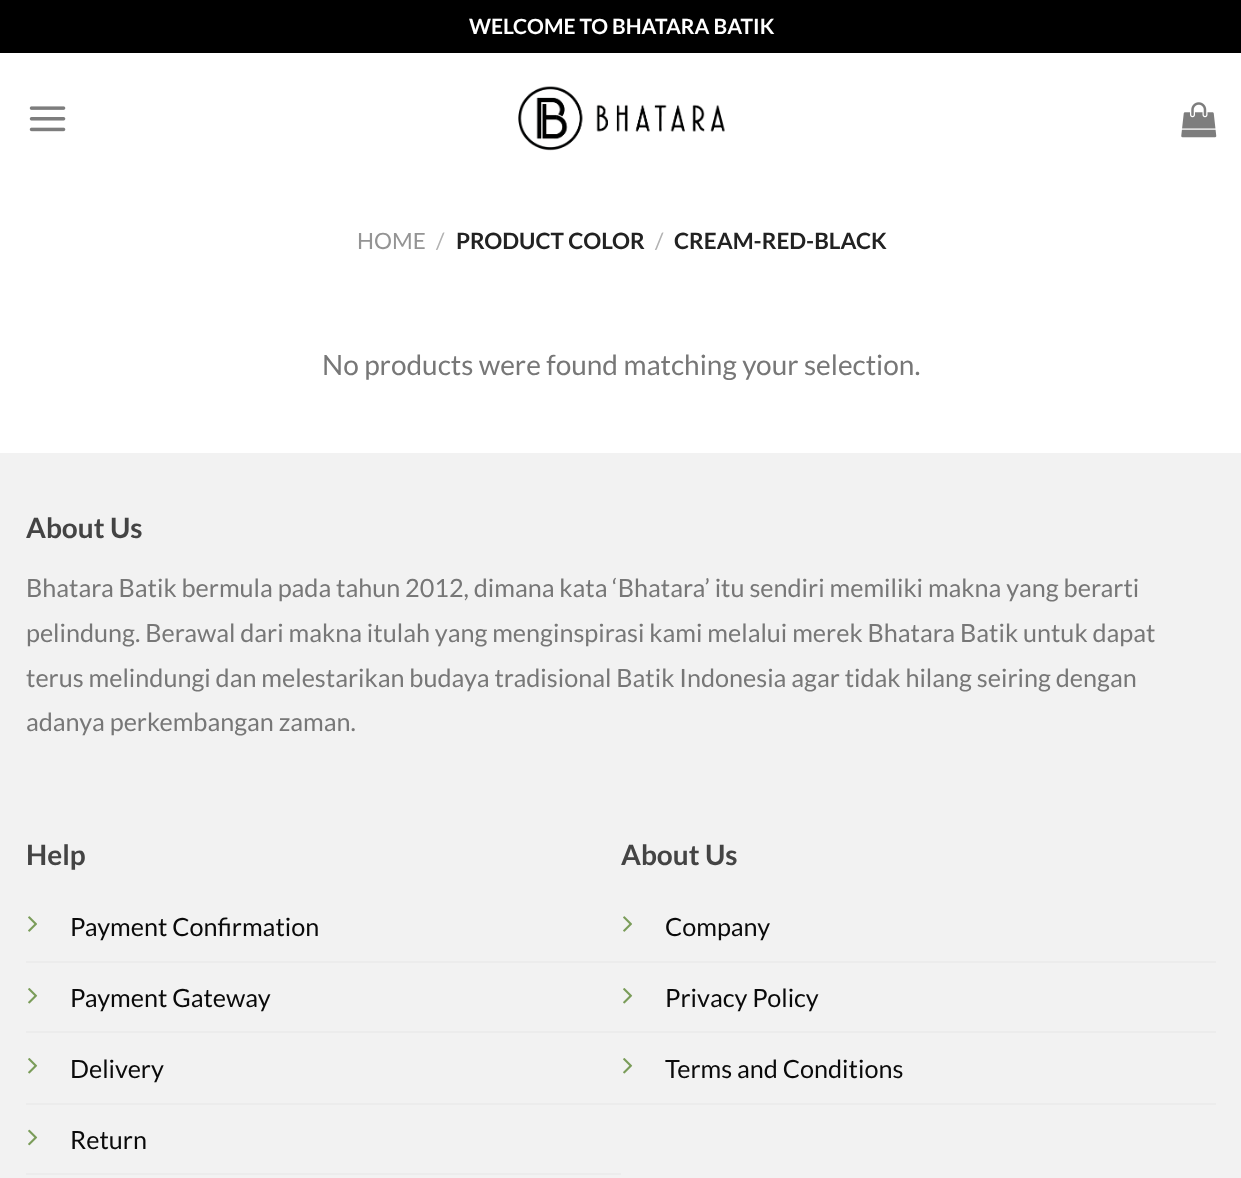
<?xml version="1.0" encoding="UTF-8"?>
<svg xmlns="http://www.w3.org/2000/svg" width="1241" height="1178">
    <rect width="100%" height="100%" fill="#FFFFFF"/>
    <rect x="0" y="0" width="1241" height="53" fill="#000000"/>
    <text x="469" y="34" font-family="Lato" font-size="21" font-weight="700" fill="#FFFFFF">WELCOME TO BHATARA BATIK</text>
    <image x="29" y="106" width="37" height="26" href="img_01.png"/>
    <image x="518" y="86" width="207" height="65" href="img_02.png"/>
    <image x="1181" y="102" width="36" height="36" href="img_03.png"/>
    <text x="357" y="249" font-family="Lato" font-size="22.5" fill="#949494">HOME</text>
    <text x="436" y="249" font-family="Lato" font-size="22.5" fill="#B2B2B2">/</text>
    <text x="456" y="249" font-family="Lato" font-size="22.5" font-weight="700" fill="#222222">PRODUCT COLOR</text>
    <text x="655" y="249" font-family="Lato" font-size="22.5" fill="#B2B2B2">/</text>
    <text x="674" y="249" font-family="Lato" font-size="22.5" font-weight="700" fill="#222222">CREAM-RED-BLACK</text>
    <text x="322" y="375" font-family="Lato" font-size="28" fill="#777777">No products were found matching your selection.</text>
    <rect x="0" y="453" width="1241" height="725" fill="#F2F2F2"/>
    <text x="26" y="538" font-family="Lato" font-size="28" font-weight="700" fill="#444444">About Us</text>
    <text font-family="Lato" font-size="25.2" fill="#777777">
        <tspan x="26" y="597">Bhatara Batik bermula pada tahun 2012, dimana kata ‘Bhatara’ itu sendiri memiliki makna yang berarti</tspan>
        <tspan x="26" y="642">pelindung. Berawal dari makna itulah yang menginspirasi kami melalui merek Bhatara Batik untuk dapat</tspan>
        <tspan x="26" y="687">terus melindungi dan melestarikan budaya tradisional Batik Indonesia agar tidak hilang seiring dengan</tspan>
        <tspan x="26" y="731">adanya perkembangan zaman.</tspan>
    </text>
    <text x="26" y="865" font-family="Lato" font-size="28" font-weight="700" fill="#444444">Help</text>
    <rect x="26" y="961" width="1190" height="2" fill="#ECECEC"/>
    <image x="28" y="916" width="9" height="16" href="img_04.png"/>
    <text x="70" y="936" font-family="Lato" font-size="25.2" fill="#0A0A0A">Payment Confirmation</text>
    <rect x="26" y="1031" width="1190" height="2" fill="#ECECEC"/>
    <image x="28" y="988" width="10" height="16" href="img_05.png"/>
    <text x="70" y="1007" font-family="Lato" font-size="25.2" fill="#0A0A0A">Payment Gateway</text>
    <rect x="26" y="1103" width="1190" height="2" fill="#ECECEC"/>
    <image x="28" y="1058" width="10" height="16" href="img_05.png"/>
    <text x="70" y="1078" font-family="Lato" font-size="25.2" fill="#0A0A0A">Delivery</text>
    <rect x="26" y="1173" width="595" height="2" fill="#ECECEC"/>
    <image x="28" y="1129" width="10" height="17" href="img_06.png"/>
    <text x="70" y="1149" font-family="Lato" font-size="25.2" fill="#0A0A0A">Return</text>
    <text x="621" y="865" font-family="Lato" font-size="28" font-weight="700" fill="#444444">About Us</text>
    <image x="623" y="916" width="9" height="16" href="img_04.png"/>
    <text x="665" y="936" font-family="Lato" font-size="25.2" fill="#0A0A0A">Company</text>
    <image x="623" y="988" width="10" height="16" href="img_05.png"/>
    <text x="665" y="1007" font-family="Lato" font-size="25.2" fill="#0A0A0A">Privacy Policy</text>
    <image x="623" y="1058" width="10" height="16" href="img_05.png"/>
    <text x="665" y="1078" font-family="Lato" font-size="25.2" fill="#0A0A0A">Terms and Conditions</text>
</svg>
